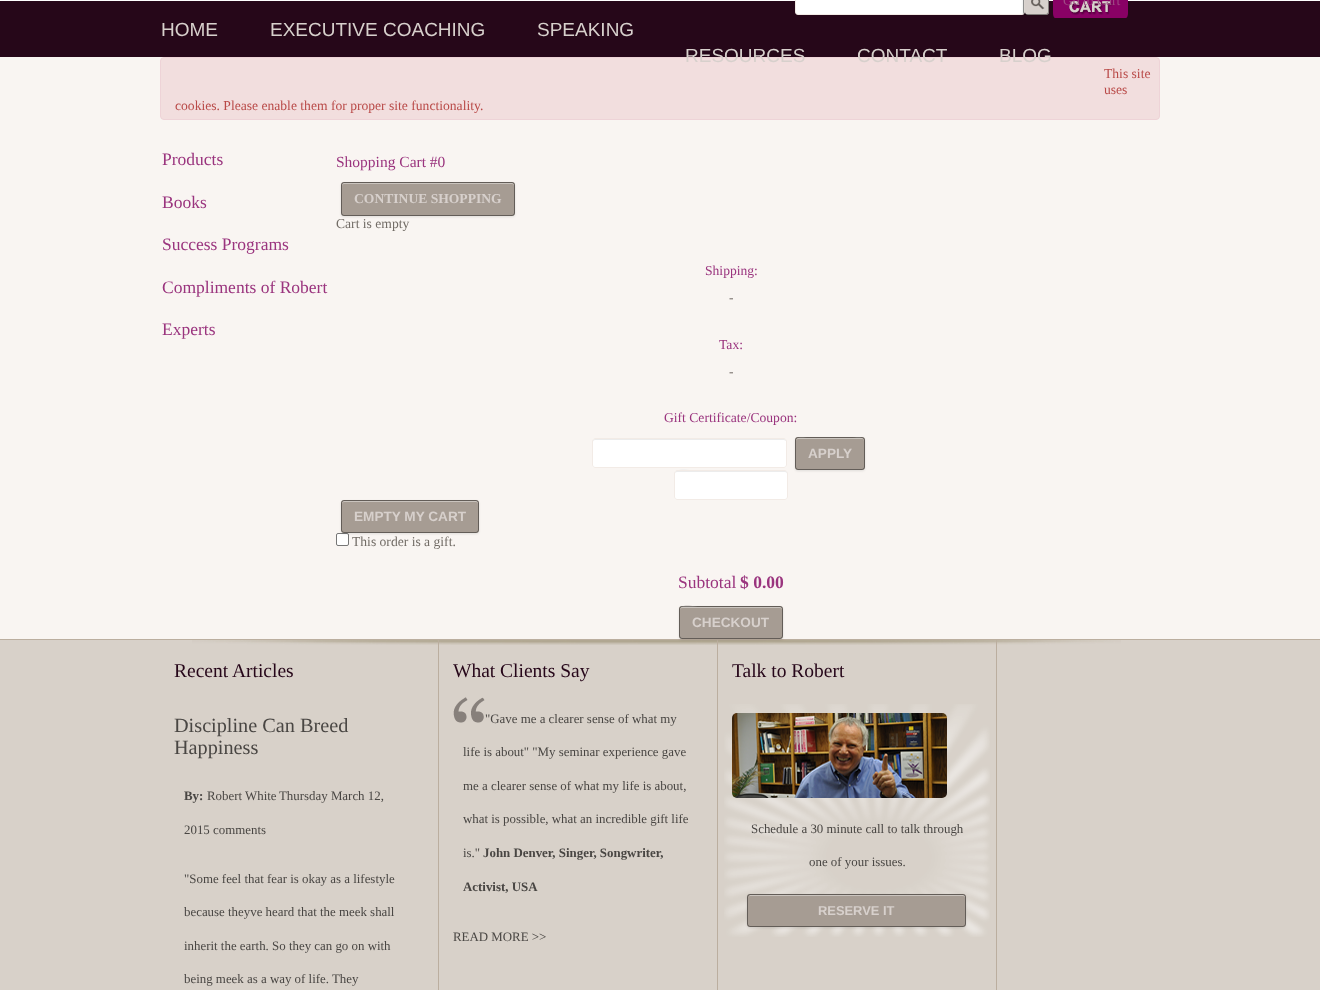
<?xml version="1.0" encoding="UTF-8"?>
<svg xmlns="http://www.w3.org/2000/svg" width="1320" height="990">
    <defs>
        <filter id="blur1" x="-50%" y="-200%" width="200%" height="500%"><feGaussianBlur stdDeviation="1"/></filter>
    </defs>
    <rect width="100%" height="100%" fill="#F9F5F2"/>
    <rect x="0" y="0" width="1320" height="1" fill="#FFFFFF"/>
    <rect x="0" y="1" width="1320" height="56" fill="#260719"/>
    <rect x="795.5" y="-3.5" width="229" height="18" rx="2.5" fill="#FFFFFF" stroke="#F2EBE6"/>
    <rect x="1023" y="-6" width="26" height="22" rx="3" fill="#000000" fill-opacity="0.1" filter="url(#blur1)"/>
    <image x="1025" y="0" width="24" height="15" href="img_01.png"/>
    <rect x="1023.5" y="-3.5" width="25" height="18" rx="2.5" fill="none" stroke="#000000" stroke-opacity="0.4"/>
    <image x="1053" y="0" width="75" height="18" href="img_02.png"/>
    <text x="1063" y="5" font-family="Liberation Serif" font-size="13.6" fill="#9E4A84">Go to Cart</text>
    <text x="161" y="36" font-family="Liberation Sans" font-size="19" fill="#D7D0CC">HOME</text>
    <text x="270" y="36" font-family="Liberation Sans" font-size="19" fill="#D7D0CC">EXECUTIVE COACHING</text>
    <text x="537" y="36" font-family="Liberation Sans" font-size="19" fill="#D7D0CC">SPEAKING</text>
    <rect x="160.5" y="57.5" width="999" height="62" rx="3.5" fill="#F2DEDE" stroke="#EED3D7"/>
    <text x="685" y="62" font-family="Liberation Sans" font-size="19" fill="#D7D0CC">RESOURCES</text>
    <text x="857" y="62" font-family="Liberation Sans" font-size="19" fill="#D7D0CC">CONTACT</text>
    <text x="999" y="62" font-family="Liberation Sans" font-size="19" fill="#D7D0CC">BLOG</text>
    <text font-family="Liberation Serif" font-size="13.6" fill="#B94A48">
        <tspan x="1104" y="78">This site</tspan>
        <tspan x="1104" y="94">uses</tspan>
    </text>
    <text x="175" y="110" font-family="Liberation Serif" font-size="13.6" fill="#B94A48">cookies. Please enable them for proper site functionality.</text>
    <text x="162" y="165" font-family="Liberation Serif" font-size="17.5" fill="#9A347E">Products</text>
    <text x="162" y="208" font-family="Liberation Serif" font-size="17.5" fill="#9A347E">Books</text>
    <text x="162" y="250" font-family="Liberation Serif" font-size="17.5" fill="#9A347E">Success Programs</text>
    <text x="162" y="293" font-family="Liberation Serif" font-size="17.5" fill="#9A347E">Compliments of Robert</text>
    <text x="162" y="335" font-family="Liberation Serif" font-size="17.5" fill="#9A347E">Experts</text>
    <text x="336" y="167" font-family="Liberation Serif" font-size="15.5" fill="#9A347E">Shopping Cart #0</text>
    <rect x="341" y="183" width="174" height="34" rx="3" fill="#000000" fill-opacity="0.1" filter="url(#blur1)"/>
    <rect x="341" y="182" width="174" height="34" rx="3" fill="#A69C93"/>
    <path d="M 344 184 H 512 C 513 184 514 185 514 186 C 514 185 514 183 512 183 H 343 C 342 184 342 185 342 186 C 342 185 343 184 344 184 Z" fill="#CAC4BE"/>
    <rect x="341.5" y="182.5" width="173" height="33" rx="2.5" fill="none" stroke="#000000" stroke-opacity="0.4"/>
    <text x="354" y="203" font-family="Liberation Serif" font-size="13.6" font-weight="700" fill="#D7D0CC">CONTINUE SHOPPING</text>
    <text x="336" y="228" font-family="Liberation Serif" font-size="13.6" fill="#726C66">Cart is empty</text>
    <text x="705" y="275" font-family="Liberation Serif" font-size="13.6" fill="#9A347E">Shipping:</text>
    <text x="729" y="302" font-family="Liberation Serif" font-size="13.6" fill="#726C66">-</text>
    <text x="719" y="349" font-family="Liberation Serif" font-size="13.6" fill="#9A347E">Tax:</text>
    <text x="729" y="376" font-family="Liberation Serif" font-size="13.6" fill="#726C66">-</text>
    <text x="664" y="422" font-family="Liberation Serif" font-size="13.6" fill="#9A347E">Gift Certificate/Coupon:</text>
    <rect x="592" y="438" width="195" height="30" rx="3" fill="#FFFFFF"/>
    <path d="M 595 440 H 784 L 786 441 V 442 V 441 C 786 440 785 439 784 439 H 595 C 594 439 593 440 593 441 V 442 C 593 441 594 440 595 440 Z" fill="#ECECEC"/>
    <rect x="592.5" y="438.5" width="194" height="29" rx="2.5" fill="none" stroke="#F2EBE6"/>
    <rect x="795" y="438" width="70" height="33" rx="3" fill="#000000" fill-opacity="0.1" filter="url(#blur1)"/>
    <rect x="795" y="437" width="70" height="33" rx="3" fill="#A69C93"/>
    <path d="M 798 439 H 863 L 864 441 C 864 435 855 438 851 438 H 809 C 805 438 796 435 796 441 C 796 440 797 439 798 439 Z" fill="#CAC4BE"/>
    <rect x="795.5" y="437.5" width="69" height="32" rx="2.5" fill="none" stroke="#000000" stroke-opacity="0.4"/>
    <text x="808" y="458" font-family="Liberation Sans" font-size="13.6" font-weight="700" fill="#D7D0CC">APPLY</text>
    <rect x="674" y="470" width="114" height="30" rx="3" fill="#FFFFFF"/>
    <path d="M 677 472 H 785 C 786 472 787 473 787 474 C 787 473 787 471 785 471 H 695 C 695 471 675 466 675 474 C 675 473 676 472 677 472 Z" fill="#ECECEC"/>
    <rect x="674.5" y="470.5" width="113" height="29" rx="2.5" fill="none" stroke="#F2EBE6"/>
    <rect x="336.5" y="533.5" width="12" height="12" rx="1.5" fill="#FFFFFF" stroke="#767676"/>
    <rect x="341" y="501" width="138" height="33" rx="3" fill="#000000" fill-opacity="0.1" filter="url(#blur1)"/>
    <rect x="341" y="500" width="138" height="33" rx="3" fill="#A69C93"/>
    <path d="M 344 502 H 476 C 477 502 478 503 478 504 C 478 503 478 501 476 501 H 344 C 342 501 342 503 342 504 C 342 503 343 502 344 502 Z" fill="#CAC4BE"/>
    <rect x="341.5" y="500.5" width="137" height="32" rx="2.5" fill="none" stroke="#000000" stroke-opacity="0.4"/>
    <text x="354" y="521" font-family="Liberation Sans" font-size="13.6" font-weight="700" fill="#D7D0CC">EMPTY MY CART</text>
    <text x="352" y="546" font-family="Liberation Serif" font-size="13.6" fill="#726C66">This order is a gift.</text>
    <text x="678" y="588" font-family="Liberation Serif" font-size="17.5" fill="#9A347E">Subtotal</text>
    <text x="740" y="588" font-family="Liberation Serif" font-size="17.5" font-weight="700" fill="#9A347E">$ 0.00</text>
    <rect x="0" y="640" width="1320" height="350" fill="#D8D1C9"/>
    <image x="192" y="640" width="929" height="5" href="img_03.png"/>
    <rect x="0" y="639" width="1320" height="1" fill="#BBAE9F"/>
    <rect x="717" y="640" width="1" height="350" fill="#BBAE9F"/>
    <rect x="679" y="607" width="104" height="33" rx="3" fill="#000000" fill-opacity="0.1" filter="url(#blur1)"/>
    <rect x="679" y="606" width="104" height="33" rx="3" fill="#A69C93"/>
    <path d="M 682 608 H 780 C 781 608 782 609 782 610 C 782 609 782 607 780 607 H 698 C 697 607 680 602 680 610 C 680 609 681 608 682 608 Z" fill="#CAC4BE"/>
    <rect x="679.5" y="606.5" width="103" height="32" rx="2.5" fill="none" stroke="#000000" stroke-opacity="0.4"/>
    <text x="692" y="627" font-family="Liberation Sans" font-size="13.6" font-weight="700" fill="#D7D0CC">CHECKOUT</text>
    <rect x="438" y="640" width="1" height="350" fill="#BBAE9F"/>
    <text x="174" y="677" font-family="Liberation Serif" font-size="19.5" fill="#260619">Recent Articles</text>
    <text font-family="Liberation Serif" font-size="20.25" fill="#494643">
        <tspan x="174" y="732">Discipline Can Breed</tspan>
        <tspan x="174" y="754">Happiness</tspan>
    </text>
    <text x="184" y="800" font-family="Liberation Serif" font-size="12.9" font-weight="700" fill="#494643">By:</text>
    <text x="207" y="800" font-family="Liberation Serif" font-size="12.9" fill="#494643">Robert White</text>
    <text x="279" y="800" font-family="Liberation Serif" font-size="12.9" fill="#494643">Thursday March 12,</text>
    <text x="184" y="834" font-family="Liberation Serif" font-size="12.9" fill="#494643">2015 comments</text>
    <text x="184" y="883" font-family="Liberation Serif" font-size="12.9" fill="#494643">"Some feel that fear is okay as a lifestyle</text>
    <text x="184" y="916" font-family="Liberation Serif" font-size="12.9" fill="#494643">because theyve heard that the meek shall</text>
    <text x="184" y="950" font-family="Liberation Serif" font-size="12.9" fill="#494643">inherit the earth. So they can go on with</text>
    <text x="184" y="983" font-family="Liberation Serif" font-size="12.9" fill="#494643">being meek as a way of life. They</text>
    <text x="453" y="677" font-family="Liberation Serif" font-size="19.5" fill="#260619">What Clients Say</text>
    <image x="453" y="697" width="32" height="26" href="img_04.png"/>
    <text x="485" y="723" font-family="Liberation Serif" font-size="12.9" fill="#494643">"Gave me a clearer sense of what my</text>
    <text x="463" y="756" font-family="Liberation Serif" font-size="12.9" fill="#494643">life is about" "My seminar experience gave</text>
    <text x="463" y="790" font-family="Liberation Serif" font-size="12.9" fill="#494643">me a clearer sense of what my life is about,</text>
    <text x="463" y="823" font-family="Liberation Serif" font-size="12.9" fill="#494643">what is possible, what an incredible gift life</text>
    <text x="463" y="857" font-family="Liberation Serif" font-size="12.9" fill="#494643">is."</text>
    <text x="483" y="857" font-family="Liberation Serif" font-size="12.9" font-weight="700" fill="#494643">John Denver, Singer, Songwriter,</text>
    <text x="463" y="891" font-family="Liberation Serif" font-size="12.9" font-weight="700" fill="#494643">Activist, USA</text>
    <text x="453" y="941" font-family="Liberation Serif" font-size="12.9" fill="#494643">READ MORE &gt;&gt;</text>
    <image x="724" y="704" width="266" height="233" href="img_05.png"/>
    <rect x="996" y="640" width="1" height="350" fill="#BBAE9F"/>
    <text x="732" y="677" font-family="Liberation Serif" font-size="19.5" fill="#260619">Talk to Robert</text>
    <image x="732" y="713" width="215" height="85" href="img_06.png"/>
    <text x="751" y="833" font-family="Liberation Serif" font-size="12.9" fill="#494643">Schedule a 30 minute call to talk through</text>
    <text x="809" y="866" font-family="Liberation Serif" font-size="12.9" fill="#494643">one of your issues.</text>
    <rect x="747" y="895" width="219" height="33" rx="3" fill="#000000" fill-opacity="0.1" filter="url(#blur1)"/>
    <rect x="747" y="894" width="219" height="33" rx="3" fill="#A69C93"/>
    <path d="M 750 896 H 963 C 964 896 965 897 965 898 C 965 897 965 895 963 895 H 750 L 749 896 L 748 898 C 748 897 749 896 750 896 Z" fill="#CAC4BE"/>
    <rect x="747.5" y="894.5" width="218" height="32" rx="2.5" fill="none" stroke="#000000" stroke-opacity="0.4"/>
    <text x="818" y="915" font-family="Liberation Sans" font-size="12.9" font-weight="700" fill="#D7D0CC">RESERVE IT</text>
</svg>
